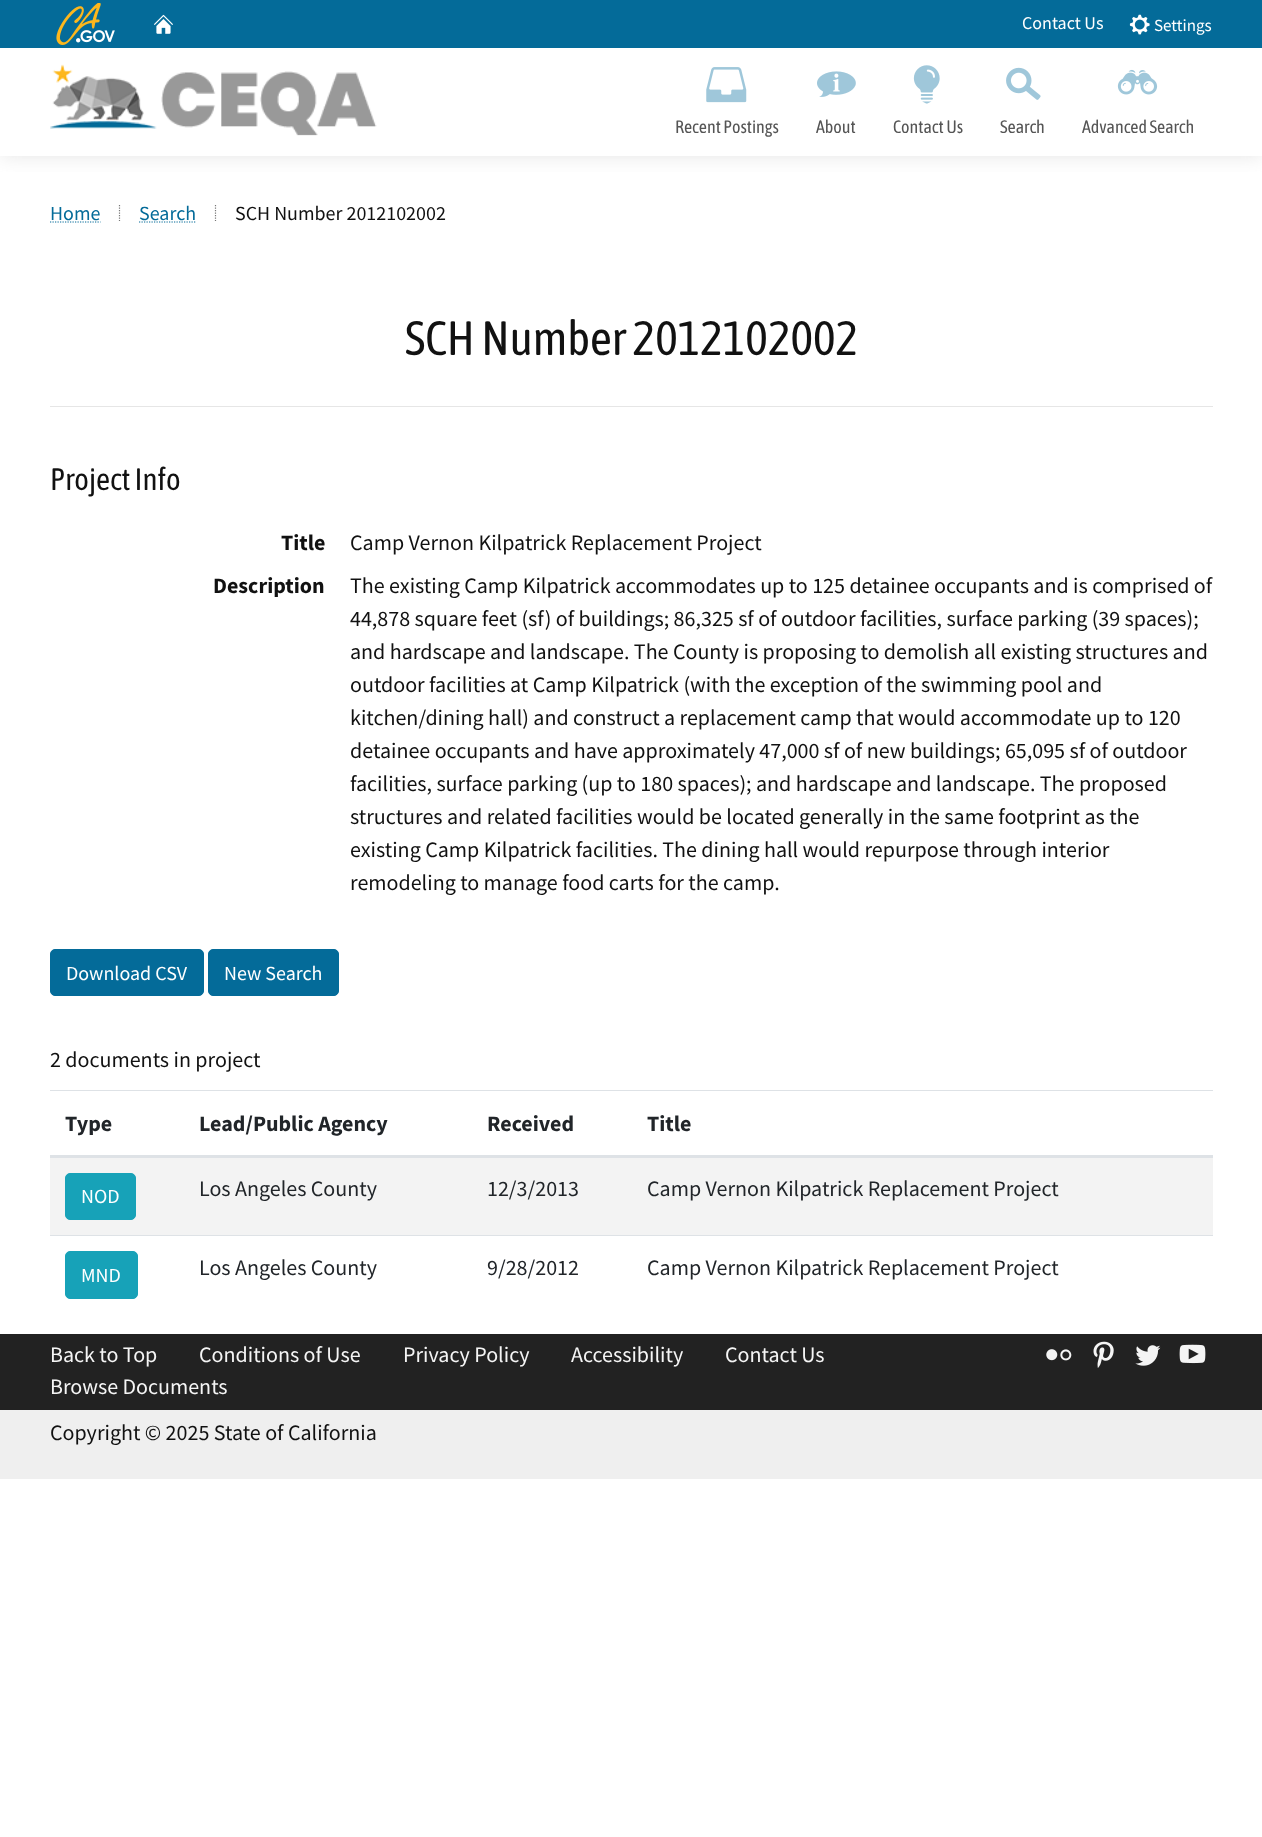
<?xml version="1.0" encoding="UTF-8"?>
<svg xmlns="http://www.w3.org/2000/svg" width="1262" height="1837">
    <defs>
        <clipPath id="clip1"><rect x="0" y="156" width="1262" height="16"/></clipPath>
        <filter id="blur1" x="-50%" y="-200%" width="200%" height="500%"><feGaussianBlur stdDeviation="9.5"/></filter>
    </defs>
    <rect width="100%" height="100%" fill="#FFFFFF"/>
    <g clip-path="url(#clip1)">
        <rect x="0" y="0" width="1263" height="156" fill="#BDBDBD" fill-opacity="0.4" filter="url(#blur1)"/>
    </g>
    <rect x="0" y="0" width="1262" height="48" fill="#046B99"/>
    <image x="56" y="3" width="59" height="42" href="img_01.png"/>
    <image x="154" y="14" width="19" height="20" href="img_02.png"/>
    <text x="1022" y="29" font-family="Source Sans Pro" font-size="18" fill="#FFFFFF">Contact Us</text>
    <image x="1129" y="14" width="21" height="21" href="img_03.png"/>
    <text x="1154" y="31" font-family="Source Sans Pro" font-size="17" fill="#FFFFFF">Settings</text>
    <image x="50" y="64" width="327" height="72" href="img_04.png"/>
    <image x="706" y="67" width="41" height="36" href="img_05.png"/>
    <text x="675" y="133" font-family="Asap Condensed" font-size="18" fill="#555555">Recent Postings</text>
    <image x="817" y="71" width="39" height="26" href="img_06.png"/>
    <text x="816" y="133" font-family="Asap Condensed" font-size="18" fill="#555555">About</text>
    <image x="913" y="65" width="27" height="39" href="img_07.png"/>
    <text x="893" y="133" font-family="Asap Condensed" font-size="18" fill="#555555">Contact Us</text>
    <image x="1006" y="67" width="35" height="33" href="img_08.png"/>
    <text x="1000" y="133" font-family="Asap Condensed" font-size="18" fill="#555555">Search</text>
    <image x="1117" y="69" width="41" height="26" href="img_09.png"/>
    <text x="1082" y="133" font-family="Asap Condensed" font-size="18" fill="#555555">Advanced Search</text>
    <text x="50" y="220" font-family="Source Sans Pro" font-size="20" fill="#046B99">Home</text>
    <path d="M 50 222 H 100.5" fill="none" stroke="#046B99" stroke-width="1.2" stroke-dasharray="1.25 1.25"/>
    <path d="M 119.5 205 V 221" fill="none" stroke="#777777" stroke-width="1.2" stroke-dasharray="1.25 1.25"/>
    <text x="139" y="220" font-family="Source Sans Pro" font-size="20" fill="#046B99">Search</text>
    <path d="M 139 222 H 196.5" fill="none" stroke="#046B99" stroke-width="1.2" stroke-dasharray="1.25 1.25"/>
    <path d="M 215.5 205 V 221" fill="none" stroke="#777777" stroke-width="1.2" stroke-dasharray="1.25 1.25"/>
    <text x="235" y="220" font-family="Source Sans Pro" font-size="20" fill="#111111">SCH Number 2012102002</text>
    <text x="405" y="355" font-family="Asap Condensed" font-size="48" fill="#111111">SCH Number 2012102002</text>
    <rect x="50" y="406" width="1163" height="1" fill="#E6E6E6"/>
    <text x="50" y="490" font-family="Asap Condensed" font-size="31" fill="#111111">Project Info</text>
    <text x="281" y="550" font-family="Source Sans Pro" font-size="22" font-weight="700" fill="#111111">Title</text>
    <text x="350" y="550" font-family="Source Sans Pro" font-size="22" fill="#111111">Camp Vernon Kilpatrick Replacement Project</text>
    <text x="213" y="593" font-family="Source Sans Pro" font-size="22" font-weight="700" fill="#111111">Description</text>
    <text font-family="Source Sans Pro" font-size="22" fill="#111111">
        <tspan x="350" y="593">The existing Camp Kilpatrick accommodates up to 125 detainee occupants and is comprised of</tspan>
        <tspan x="350" y="626">44,878 square feet (sf) of buildings; 86,325 sf of outdoor facilities, surface parking (39 spaces);</tspan>
        <tspan x="350" y="659">and hardscape and landscape. The County is proposing to demolish all existing structures and</tspan>
        <tspan x="350" y="692">outdoor facilities at Camp Kilpatrick (with the exception of the swimming pool and</tspan>
        <tspan x="350" y="725">kitchen/dining hall) and construct a replacement camp that would accommodate up to 120</tspan>
        <tspan x="350" y="758">detainee occupants and have approximately 47,000 sf of new buildings; 65,095 sf of outdoor</tspan>
        <tspan x="350" y="791">facilities, surface parking (up to 180 spaces); and hardscape and landscape. The proposed</tspan>
        <tspan x="350" y="824">structures and related facilities would be located generally in the same footprint as the</tspan>
        <tspan x="350" y="857">existing Camp Kilpatrick facilities. The dining hall would repurpose through interior</tspan>
        <tspan x="350" y="890">remodeling to manage food carts for the camp.</tspan>
    </text>
    <rect x="50.5" y="949.5" width="153" height="46" rx="4.5" fill="#046B99" stroke="#046B99"/>
    <text x="66" y="980" font-family="Source Sans Pro" font-size="20" fill="#FFFFFF">Download CSV</text>
    <rect x="208.5" y="949.5" width="130" height="46" rx="4.5" fill="#046B99" stroke="#046B99"/>
    <text x="224" y="980" font-family="Source Sans Pro" font-size="20" fill="#FFFFFF">New Search</text>
    <text x="50" y="1067" font-family="Source Sans Pro" font-size="22" fill="#111111">2 documents in project</text>
    <text x="65" y="1131" font-family="Source Sans Pro" font-size="22" font-weight="700" fill="#212529">Type</text>
    <text x="199" y="1131" font-family="Source Sans Pro" font-size="22" font-weight="700" fill="#212529">Lead/Public Agency</text>
    <text x="487" y="1131" font-family="Source Sans Pro" font-size="22" font-weight="700" fill="#212529">Received</text>
    <rect x="50" y="1090" width="1163" height="1" fill="#DEE2E6"/>
    <rect x="50" y="1155" width="1163" height="3" fill="#DEE2E6"/>
    <text x="647" y="1131" font-family="Source Sans Pro" font-size="22" font-weight="700" fill="#212529">Title</text>
    <rect x="50" y="1158" width="1163" height="77" fill="#F3F3F3"/>
    <rect x="65.5" y="1173.5" width="70" height="46" rx="4.5" fill="#17A2B8" stroke="#17A2B8"/>
    <text x="81" y="1203" font-family="Source Sans Pro" font-size="20" fill="#FFFFFF">NOD</text>
    <text x="199" y="1196" font-family="Source Sans Pro" font-size="22" fill="#212529">Los Angeles County</text>
    <text x="487" y="1196" font-family="Source Sans Pro" font-size="22" fill="#212529">12/3/2013</text>
    <text x="647" y="1196" font-family="Source Sans Pro" font-size="22" fill="#212529">Camp Vernon Kilpatrick Replacement Project</text>
    <rect x="65.5" y="1251.5" width="72" height="47" rx="4.5" fill="#17A2B8" stroke="#17A2B8"/>
    <text x="81" y="1282" font-family="Source Sans Pro" font-size="20" fill="#FFFFFF">MND</text>
    <text x="199" y="1275" font-family="Source Sans Pro" font-size="22" fill="#212529">Los Angeles County</text>
    <text x="487" y="1275" font-family="Source Sans Pro" font-size="22" fill="#212529">9/28/2012</text>
    <rect x="50" y="1235" width="1163" height="1" fill="#DEE2E6"/>
    <text x="647" y="1275" font-family="Source Sans Pro" font-size="22" fill="#212529">Camp Vernon Kilpatrick Replacement Project</text>
    <rect x="0" y="1334" width="1262" height="76" fill="#222222"/>
    <text x="50" y="1362" font-family="Source Sans Pro" font-size="22" fill="#F5F5F5">Back to Top</text>
    <text x="199" y="1362" font-family="Source Sans Pro" font-size="22" fill="#F5F5F5">Conditions of Use</text>
    <text x="403" y="1362" font-family="Source Sans Pro" font-size="22" fill="#F5F5F5">Privacy Policy</text>
    <text x="571" y="1362" font-family="Source Sans Pro" font-size="22" fill="#F5F5F5">Accessibility</text>
    <text x="725" y="1362" font-family="Source Sans Pro" font-size="22" fill="#F5F5F5">Contact Us</text>
    <text x="50" y="1394" font-family="Source Sans Pro" font-size="22" fill="#F5F5F5">Browse Documents</text>
    <image x="1046" y="1349" width="26" height="12" href="img_10.png"/>
    <image x="1093" y="1341" width="21" height="27" href="img_11.png"/>
    <image x="1135" y="1345" width="26" height="21" href="img_12.png"/>
    <image x="1179" y="1344" width="27" height="20" href="img_13.png"/>
    <rect x="0" y="1410" width="1262" height="69" fill="#EFEFEF"/>
    <text x="50" y="1440" font-family="Source Sans Pro" font-size="22" fill="#111111">Copyright © 2025 State of California</text>
</svg>
